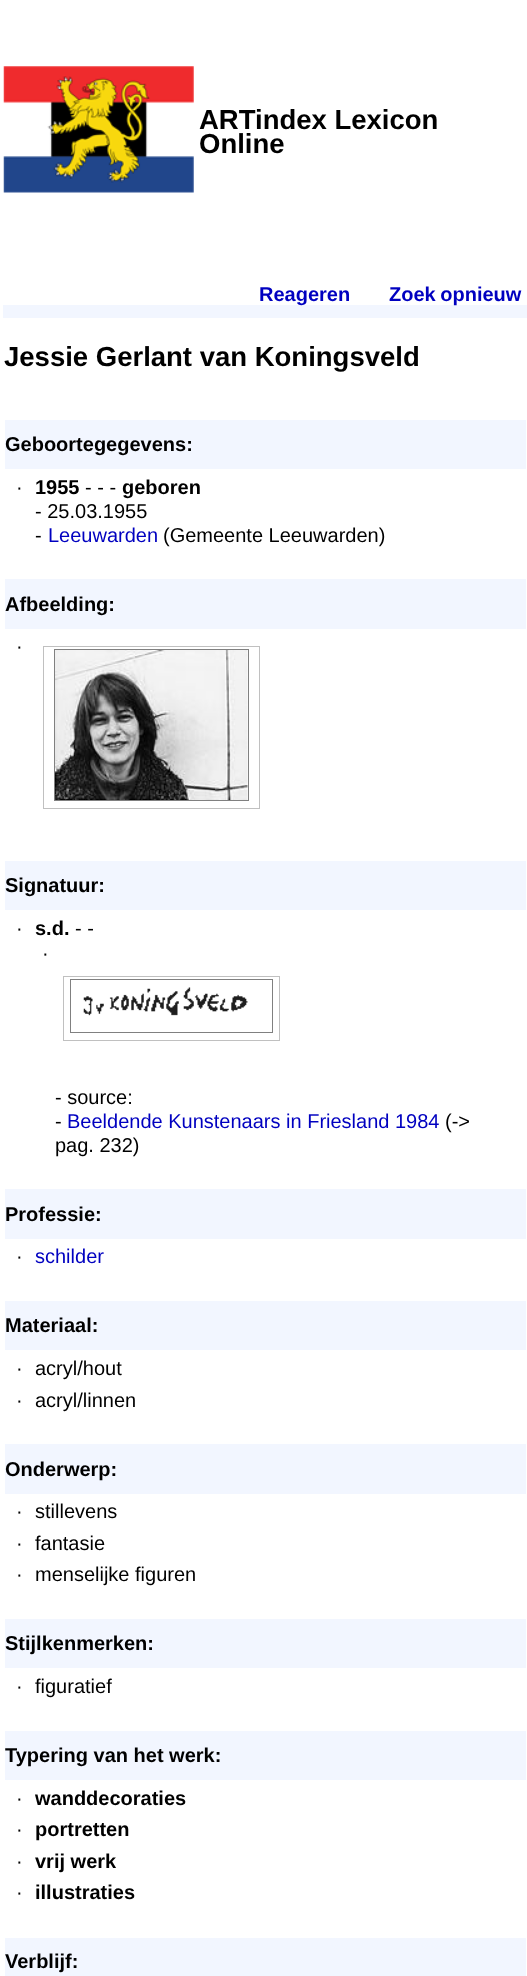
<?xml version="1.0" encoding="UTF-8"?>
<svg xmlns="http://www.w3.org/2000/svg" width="527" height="1976">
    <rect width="100%" height="100%" fill="#FFFFFF"/>
    <image x="3" y="66" width="191" height="127" href="img_01.png"/>
    <text font-family="Liberation Sans" font-size="27.5" font-weight="700" fill="#000000">
        <tspan x="199" y="129">ARTindex Lexicon</tspan>
        <tspan x="199" y="153">Online</tspan>
    </text>
    <rect x="3" y="305" width="524" height="13" fill="#F2F6FF"/>
    <text x="259" y="301" font-family="Liberation Sans" font-size="20" font-weight="700" fill="#0000C0">Reageren</text>
    <text x="389" y="301" word-spacing="-1" font-family="Liberation Sans" font-size="20" font-weight="700" fill="#0000C0">Zoek opnieuw</text>
    <text x="4" y="366" font-family="Liberation Sans" font-size="27.5" font-weight="700" fill="#000000">Jessie Gerlant van Koningsveld</text>
    <rect x="5" y="420" width="521" height="49" fill="#F2F6FF"/>
    <text x="5" y="451" font-family="Liberation Sans" font-size="20" font-weight="700" fill="#000000">Geboortegegevens:</text>
    <text x="16" y="494" font-family="Liberation Sans" font-size="20" fill="#000000">·</text>
    <text x="35" y="494" font-family="Liberation Sans" font-size="20" font-weight="700" fill="#000000">1955</text>
    <text x="85" y="494" font-family="Liberation Sans" font-size="20" fill="#000000">- - -</text>
    <text x="122" y="494" font-family="Liberation Sans" font-size="20" font-weight="700" fill="#000000">geboren</text>
    <text font-family="Liberation Sans" font-size="20" fill="#000000">
        <tspan x="35" y="518">- 25.03.1955</tspan>
        <tspan x="35" y="542">-</tspan>
    </text>
    <text x="48" y="542" font-family="Liberation Sans" font-size="20" fill="#0000C0">Leeuwarden</text>
    <text x="163" y="542" font-family="Liberation Sans" font-size="20" fill="#000000">(Gemeente Leeuwarden)</text>
    <rect x="5" y="579" width="521" height="50" fill="#F2F6FF"/>
    <text x="5" y="611" font-family="Liberation Sans" font-size="20" font-weight="700" fill="#000000">Afbeelding:</text>
    <text x="16" y="653" font-family="Liberation Sans" font-size="20" fill="#000000">·</text>
    <rect x="43.5" y="646.5" width="216" height="162" fill="none" stroke="#C0C0C0"/>
    <rect x="54.5" y="649.5" width="194" height="151" fill="none" stroke="#808080"/>
    <image x="55" y="650" width="193" height="150" href="img_02.png"/>
    <rect x="5" y="861" width="521" height="49" fill="#F2F6FF"/>
    <text x="5" y="892" font-family="Liberation Sans" font-size="20" font-weight="700" fill="#000000">Signatuur:</text>
    <text x="16" y="935" font-family="Liberation Sans" font-size="20" fill="#000000">·</text>
    <text x="35" y="935" font-family="Liberation Sans" font-size="20" font-weight="700" fill="#000000">s.d.</text>
    <text x="75" y="935" font-family="Liberation Sans" font-size="20" fill="#000000">- -</text>
    <text x="42" y="960" font-family="Liberation Sans" font-size="20" fill="#000000">·</text>
    <rect x="63.5" y="976.5" width="216" height="64" fill="none" stroke="#C0C0C0"/>
    <rect x="70.5" y="979.5" width="202" height="53" fill="none" stroke="#808080"/>
    <image x="83" y="987" width="165" height="29" href="img_03.png"/>
    <text font-family="Liberation Sans" font-size="20" fill="#000000">
        <tspan x="55" y="1104">- source:</tspan>
        <tspan x="55" y="1128">-</tspan>
    </text>
    <text x="67" y="1128" font-family="Liberation Sans" font-size="20" fill="#0000C0">Beeldende Kunstenaars in Friesland 1984</text>
    <text x="445" y="1128" font-family="Liberation Sans" font-size="20" fill="#000000">(-&gt;</text>
    <text x="55" y="1152" font-family="Liberation Sans" font-size="20" fill="#000000">pag. 232)</text>
    <rect x="5" y="1189" width="521" height="50" fill="#F2F6FF"/>
    <text x="5" y="1221" font-family="Liberation Sans" font-size="20" font-weight="700" fill="#000000">Professie:</text>
    <text x="16" y="1263" font-family="Liberation Sans" font-size="20" fill="#000000">·</text>
    <text x="35" y="1263" font-family="Liberation Sans" font-size="20" fill="#0000C0">schilder</text>
    <rect x="5" y="1301" width="521" height="49" fill="#F2F6FF"/>
    <text x="5" y="1332" font-family="Liberation Sans" font-size="20" font-weight="700" fill="#000000">Materiaal:</text>
    <text x="16" y="1375" font-family="Liberation Sans" font-size="20" fill="#000000">·</text>
    <text x="35" y="1375" font-family="Liberation Sans" font-size="20" fill="#000000">acryl/hout</text>
    <text x="16" y="1407" font-family="Liberation Sans" font-size="20" fill="#000000">·</text>
    <text x="35" y="1407" font-family="Liberation Sans" font-size="20" fill="#000000">acryl/linnen</text>
    <rect x="5" y="1444" width="521" height="50" fill="#F2F6FF"/>
    <text x="5" y="1476" font-family="Liberation Sans" font-size="20" font-weight="700" fill="#000000">Onderwerp:</text>
    <text x="16" y="1518" font-family="Liberation Sans" font-size="20" fill="#000000">·</text>
    <text x="35" y="1518" font-family="Liberation Sans" font-size="20" fill="#000000">stillevens</text>
    <text x="16" y="1550" font-family="Liberation Sans" font-size="20" fill="#000000">·</text>
    <text x="35" y="1550" font-family="Liberation Sans" font-size="20" fill="#000000">fantasie</text>
    <text x="16" y="1581" font-family="Liberation Sans" font-size="20" fill="#000000">·</text>
    <text x="35" y="1581" font-family="Liberation Sans" font-size="20" fill="#000000">menselijke figuren</text>
    <rect x="5" y="1619" width="521" height="49" fill="#F2F6FF"/>
    <text x="5" y="1650" font-family="Liberation Sans" font-size="20" font-weight="700" fill="#000000">Stijlkenmerken:</text>
    <text x="16" y="1693" font-family="Liberation Sans" font-size="20" fill="#000000">·</text>
    <text x="35" y="1693" font-family="Liberation Sans" font-size="20" fill="#000000">figuratief</text>
    <rect x="5" y="1731" width="521" height="49" fill="#F2F6FF"/>
    <text x="5" y="1762" font-family="Liberation Sans" font-size="20" font-weight="700" fill="#000000">Typering van het werk:</text>
    <text x="16" y="1805" font-family="Liberation Sans" font-size="20" fill="#000000">·</text>
    <text x="35" y="1805" font-family="Liberation Sans" font-size="20" font-weight="700" fill="#000000">wanddecoraties</text>
    <text x="16" y="1836" font-family="Liberation Sans" font-size="20" fill="#000000">·</text>
    <text x="35" y="1836" font-family="Liberation Sans" font-size="20" font-weight="700" fill="#000000">portretten</text>
    <text x="16" y="1868" font-family="Liberation Sans" font-size="20" fill="#000000">·</text>
    <text x="35" y="1868" font-family="Liberation Sans" font-size="20" font-weight="700" fill="#000000">vrij werk</text>
    <text x="16" y="1899" font-family="Liberation Sans" font-size="20" fill="#000000">·</text>
    <text x="35" y="1899" font-family="Liberation Sans" font-size="20" font-weight="700" fill="#000000">illustraties</text>
    <rect x="5" y="1938" width="521" height="38" fill="#F2F6FF"/>
    <text x="5" y="1968" font-family="Liberation Sans" font-size="20" font-weight="700" fill="#000000">Verblijf:</text>
</svg>
